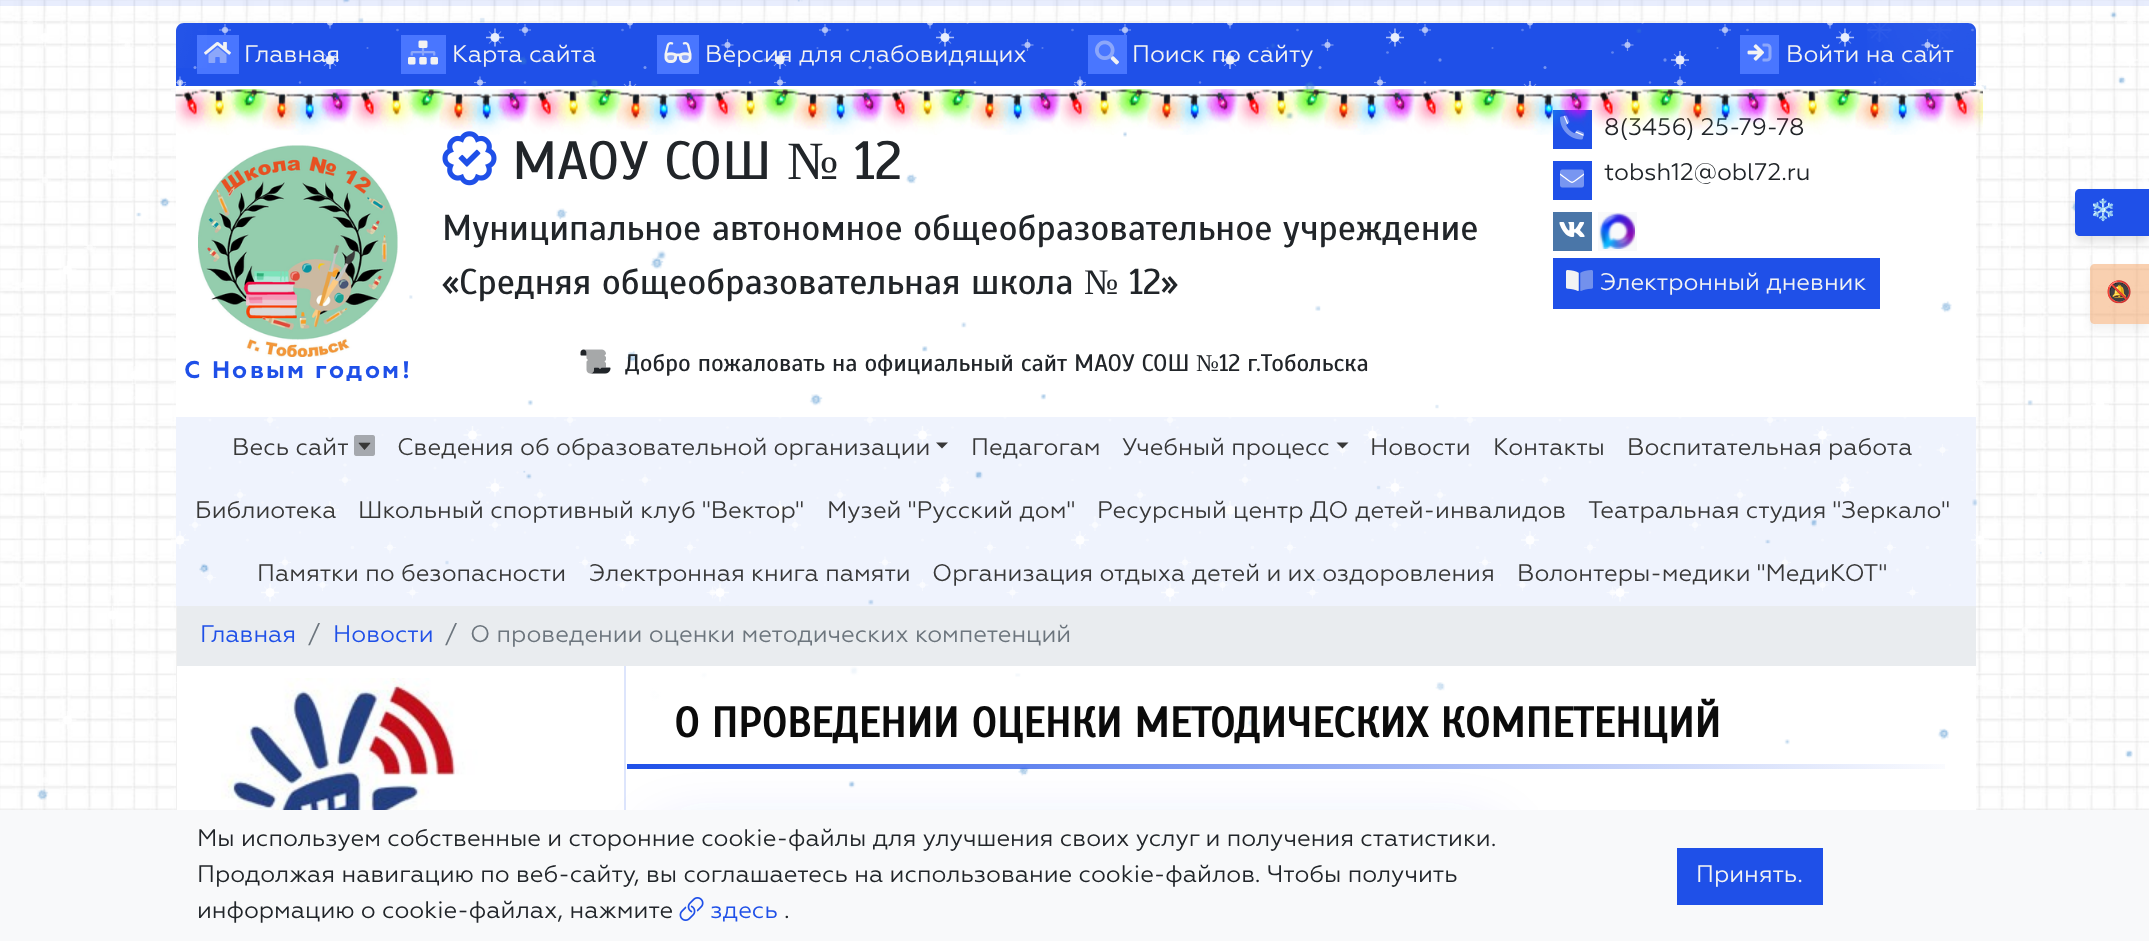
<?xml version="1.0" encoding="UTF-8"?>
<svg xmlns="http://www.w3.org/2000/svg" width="2149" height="941">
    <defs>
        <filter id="blur1" x="-50%" y="-200%" width="200%" height="500%"><feGaussianBlur stdDeviation="4.5"/></filter>
        <clipPath id="clip1"><path d="M 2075 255 H 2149 V 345 H 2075 Z M 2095 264 H 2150 V 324 H 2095 C 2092 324 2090 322 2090 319 V 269 C 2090 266 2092 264 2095 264 Z" clip-rule="evenodd"/></clipPath>
        <linearGradient id="g1" gradientUnits="userSpaceOnUse" x1="627" y1="717" x2="1974" y2="717"><stop offset="0" stop-color="#FFFFFF"/><stop offset="1" stop-color="#FFFFFF" stop-opacity="0"/></linearGradient>
        <linearGradient id="g2" gradientUnits="userSpaceOnUse" x1="627" y1="766" x2="1974" y2="766"><stop offset="0" stop-color="#1F50E8"/><stop offset="1" stop-color="#1F50E8" stop-opacity="0"/></linearGradient>
        <filter id="blur2" x="-50%" y="-200%" width="200%" height="500%"><feGaussianBlur stdDeviation="30"/></filter>
    </defs>
    <rect width="100%" height="100%" fill="#FFFFFF"/>
    <image x="0" y="0" width="2149" height="810" href="img_01.png"/>
    <path d="M 184 23 H 1968 C 1972.5 23 1976 26.5 1976 31 V 86 H 176 V 31 C 176 26.5 179.5 23 184 23 Z" fill="#1F50E8"/>
    <rect x="176" y="86" width="1800" height="331" fill="#FFFFFF"/>
    <rect x="176" y="417" width="1800" height="189" fill="#EFF3FD"/>
    <rect x="626" y="666" width="1350" height="144" fill="#FFFFFF"/>
    <rect x="176" y="606" width="1" height="204" fill="#F0F0F0"/>
    <image x="37" y="0" width="2096" height="800" href="img_02.png"/>
    <image x="21" y="22" width="2094" height="788" href="img_04.png"/>
    <image x="17" y="19" width="2132" height="782" href="img_03.png"/>
    <image x="20" y="28" width="2118" height="731" href="img_05.png"/>
    <rect x="197" y="35" width="42" height="39" fill="#4976FF"/>
    <image x="204" y="42" width="27" height="13" href="img_08.png"/>
    <image x="176" y="23" width="31" height="45" href="img_06.png"/>
    <text x="1786" y="62" font-family="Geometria" font-size="24" fill="#F3F3F3">Войти на сайт</text>
    <image x="442" y="131" width="55" height="55" href="img_20.png"/>
    <rect x="1553" y="110" width="39" height="39" fill="#1F50E8"/>
    <image x="1563" y="115" width="21" height="21" href="img_24.png"/>
    <image x="1560" y="115" width="24" height="25" href="img_23.png"/>
    <text x="1604" y="135" font-family="Geometria" font-size="24" fill="#212529">8(3456) 25-79-78</text>
    <image x="175" y="89" width="1808" height="46" href="img_18.png"/>
    <image x="1867" y="23" width="116" height="89" href="img_07.png"/>
    <image x="208" y="47" width="19" height="16" href="img_09.png"/>
    <text x="244" y="62" font-family="Geometria" font-size="24" fill="#F3F3F3">Главная</text>
    <rect x="401" y="35" width="45" height="39" fill="#4976FF"/>
    <image x="408" y="40" width="30" height="25" href="img_10.png"/>
    <image x="410" y="48" width="26" height="8" href="img_11.png"/>
    <text x="452" y="62" font-family="Geometria" font-size="24" fill="#F3F3F3">Карта сайта</text>
    <rect x="657" y="35" width="42" height="39" fill="#4976FF"/>
    <image x="664" y="42" width="28" height="21" href="img_12.png"/>
    <image x="667" y="55" width="22" height="5" href="img_13.png"/>
    <text x="705" y="62" font-family="Geometria" font-size="24" fill="#F3F3F3">Версия для слабовидящих</text>
    <rect x="1088" y="35" width="39" height="39" fill="#4976FF"/>
    <image x="1110" y="56" width="9" height="9" href="img_15.png"/>
    <image x="1095" y="40" width="20" height="20" href="img_14.png"/>
    <text x="1132" y="62" font-family="Geometria" font-size="24" fill="#F3F3F3">Поиск по сайту</text>
    <rect x="1740" y="35" width="39" height="39" fill="#4976FF"/>
    <image x="1747" y="44" width="17" height="17" href="img_16.png"/>
    <image x="1762" y="43" width="10" height="19" href="img_17.png"/>
    <image x="198" y="145" width="200" height="212" href="img_19.png"/>
    <text x="184" y="378" font-family="Geometria" font-size="24" font-weight="700" fill="#1F50E8">С</text>
    <text x="212" y="378" font-family="Geometria" font-size="24" font-weight="700" fill="#1F50E8">Н</text>
    <text x="232" y="378" font-family="Geometria" font-size="24" font-weight="700" fill="#1F50E8">о</text>
    <text x="250" y="378" font-family="Geometria" font-size="24" font-weight="700" fill="#1F50E8">в</text>
    <text x="266" y="378" font-family="Geometria" font-size="24" font-weight="700" fill="#1F50E8">ы</text>
    <text x="287" y="378" font-family="Geometria" font-size="24" font-weight="700" fill="#1F50E8">м</text>
    <text x="315" y="378" font-family="Geometria" font-size="24" font-weight="700" fill="#1F50E8">г</text>
    <text x="329" y="378" font-family="Geometria" font-size="24" font-weight="700" fill="#1F50E8">о</text>
    <text x="346" y="378" font-family="Geometria" font-size="24" font-weight="700" fill="#1F50E8">д</text>
    <text x="365" y="378" font-family="Geometria" font-size="24" font-weight="700" fill="#1F50E8">о</text>
    <text x="382" y="378" font-family="Geometria" font-size="24" font-weight="700" fill="#1F50E8">м</text>
    <text x="402" y="378" font-family="Geometria" font-size="24" font-weight="700" fill="#1F50E8">!</text>
    <text x="512" y="179" font-family="Scada" font-size="54" fill="#212529">МАОУ СОШ</text>
    <text x="787" y="179" font-family="Liberation Serif" font-size="54" fill="#212529">№</text>
    <text x="854" y="179" font-family="Scada" font-size="54" fill="#212529">12</text>
    <text font-family="Scada" font-size="36" fill="#212529">
        <tspan x="442" y="240">Муниципальное автономное общеобразовательное учреждение</tspan>
        <tspan x="442" y="294">«Средняя общеобразовательная школа</tspan>
    </text>
    <text x="1084" y="294" font-family="Liberation Serif" font-size="36" fill="#212529">№</text>
    <text x="1129" y="294" font-family="Scada" font-size="36" fill="#212529">12»</text>
    <image x="580" y="349" width="31" height="25" href="img_21.png"/>
    <image x="584" y="349" width="22" height="25" href="img_22.png"/>
    <text x="625" y="371" font-family="Scada" font-size="24" fill="#212529">Добро пожаловать на официальный сайт МАОУ СОШ</text>
    <text x="1196" y="371" font-family="Liberation Serif" font-size="24" fill="#212529">№</text>
    <text x="1219" y="371" font-family="Scada" font-size="24" fill="#212529">12 г.Тобольска</text>
    <rect x="1553" y="161" width="39" height="39" fill="#1F50E8"/>
    <image x="1560" y="173" width="24" height="10" href="img_26.png"/>
    <image x="1560" y="169" width="24" height="19" href="img_25.png"/>
    <text x="1604" y="180" font-family="Geometria" font-size="24" fill="#212529">tobsh12@obl72.ru</text>
    <rect x="1553" y="212" width="39" height="39" fill="#4A76A8"/>
    <image x="1559" y="222" width="26" height="15" href="img_27.png"/>
    <rect x="1598" y="212" width="39" height="39" fill="#F8F9FA"/>
    <image x="1599" y="213" width="36" height="36" href="img_28.png"/>
    <rect x="1553" y="258" width="327" height="51" fill="#1F50E8"/>
    <image x="1566" y="270" width="13" height="21" href="img_29.png"/>
    <image x="1580" y="270" width="13" height="21" href="img_30.png"/>
    <text x="1600" y="290" font-family="Geometria" font-size="24" fill="#F3F3F3">Электронный дневник</text>
    <rect x="2075" y="195" width="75" height="47" rx="5" fill="#000000" fill-opacity="0.1" filter="url(#blur1)"/>
    <path d="M 2080 189 H 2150 V 236 H 2080 C 2077 236 2075 234 2075 231 V 194 C 2075 191 2077 189 2080 189 Z" fill="#1F50E8"/>
    <text x="2090" y="217" font-family="Noto Color Emoji" font-size="21" fill="#FFFFFF">❄️</text>
    <g clip-path="url(#clip1)">
        <rect x="2090" y="270" width="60" height="60" rx="5" fill="#000000" fill-opacity="0.05" filter="url(#blur1)"/>
    </g>
    <path d="M 2095 264 H 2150 V 324 H 2095 C 2092 324 2090 322 2090 319 V 269 C 2090 266 2092 264 2095 264 Z" fill="#F4A261" fill-opacity="0.5"/>
    <text x="2106" y="299" font-family="Noto Color Emoji" font-size="21" fill="#FBE7D7">🔕</text>
    <text x="232" y="455" font-family="Geometria" font-size="24" fill="#383838">Весь сайт</text>
    <image x="358" y="442" width="13" height="8" href="img_32.png"/>
    <image x="354" y="435" width="21" height="21" href="img_31.png"/>
    <text x="397" y="455" font-family="Geometria" font-size="24" fill="#383838">Сведения об образовательной организации</text>
    <path d="M 936 442.5 H 948 L 942 448.5 Z" fill="#383838"/>
    <text x="971" y="455" font-family="Geometria" font-size="24" fill="#383838">Педагогам</text>
    <text x="1122" y="455" font-family="Geometria" font-size="24" fill="#383838">Учебный процесс</text>
    <path d="M 1336.5 442.5 H 1348.5 L 1342.5 448.5 Z" fill="#383838"/>
    <text x="1370" y="455" font-family="Geometria" font-size="24" fill="#383838">Новости</text>
    <text x="1493" y="455" font-family="Geometria" font-size="24" fill="#383838">Контакты</text>
    <text x="1627" y="455" font-family="Geometria" font-size="24" fill="#383838">Воспитательная работа</text>
    <text x="195" y="518" font-family="Geometria" font-size="24" fill="#383838">Библиотека</text>
    <text x="358" y="518" font-family="Geometria" font-size="24" fill="#383838">Школьный спортивный клуб "Вектор"</text>
    <text x="827" y="518" font-family="Geometria" font-size="24" fill="#383838">Музей "Русский дом"</text>
    <text x="1097" y="518" font-family="Geometria" font-size="24" fill="#383838">Ресурсный центр ДО детей-инвалидов</text>
    <text x="1588" y="518" font-family="Geometria" font-size="24" fill="#383838">Театральная студия "Зеркало"</text>
    <text x="257" y="581" font-family="Geometria" font-size="24" fill="#383838">Памятки по безопасности</text>
    <text x="589" y="581" font-family="Geometria" font-size="24" fill="#383838">Электронная книга памяти</text>
    <text x="932" y="581" font-family="Geometria" font-size="24" fill="#383838">Организация отдыха детей и их оздоровления</text>
    <text x="1517" y="581" font-family="Geometria" font-size="24" fill="#383838">Волонтеры-медики "МедиКОТ"</text>
    <rect x="177" y="606" width="1799" height="60" fill="#E9ECEF"/>
    <text x="200" y="642" font-family="Geometria" font-size="24" fill="#1F50E8">Главная</text>
    <text x="308" y="642" font-family="Geometria" font-size="24" fill="#6C757D">/</text>
    <text x="333" y="642" font-family="Geometria" font-size="24" fill="#1F50E8">Новости</text>
    <text x="445" y="642" font-family="Geometria" font-size="24" fill="#6C757D">/</text>
    <text x="470" y="642" font-family="Geometria" font-size="24" fill="#6C757D">О проведении оценки методических компетенций</text>
    <rect x="177" y="666" width="447" height="144" fill="#FFFFFF"/>
    <rect x="624" y="666" width="2" height="144" fill="#DDE5FC"/>
    <image x="221" y="678" width="352" height="132" href="img_33.png"/>
    <rect x="0" y="0" width="2149" height="6" fill="#1F50E8" fill-opacity="0.1"/>
    <rect x="649" y="666" width="1141" height="102" fill="url(#g1)"/>
    <rect x="627" y="764" width="1318" height="5" fill="url(#g2)"/>
    <rect x="653" y="831" width="847" height="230" rx="30" fill="#1F50E8" fill-opacity="0.15" filter="url(#blur2)"/>
    <text x="674" y="737" font-family="Scada" font-size="42" font-weight="700" fill="#0B0B0B">О ПРОВЕДЕНИИ ОЦЕНКИ МЕТОДИЧЕСКИХ КОМПЕТЕНЦИЙ</text>
    <rect x="0" y="810" width="2149" height="131" fill="#F8F9FA"/>
    <text font-family="Geometria" font-size="24" fill="#212529">
        <tspan x="197" y="846">Мы используем собственные и сторонние cookie-файлы для улучшения своих услуг и получения статистики.</tspan>
        <tspan x="197" y="882">Продолжая навигацию по веб-сайту, вы соглашаетесь на использование cookie-файлов. Чтобы получить</tspan>
        <tspan x="197" y="918">информацию о cookie-файлах, нажмите</tspan>
    </text>
    <image x="679" y="897" width="25" height="24" href="img_34.png"/>
    <text x="710" y="918" font-family="Geometria" font-size="24" fill="#1F50E8">здесь</text>
    <text x="784" y="918" font-family="Geometria" font-size="24" fill="#212529">.</text>
    <rect x="1677" y="848" width="146" height="57" fill="#1F50E8"/>
    <text x="1696" y="882" font-family="Geometria" font-size="24" fill="#F3F3F3">Принять.</text>
</svg>
